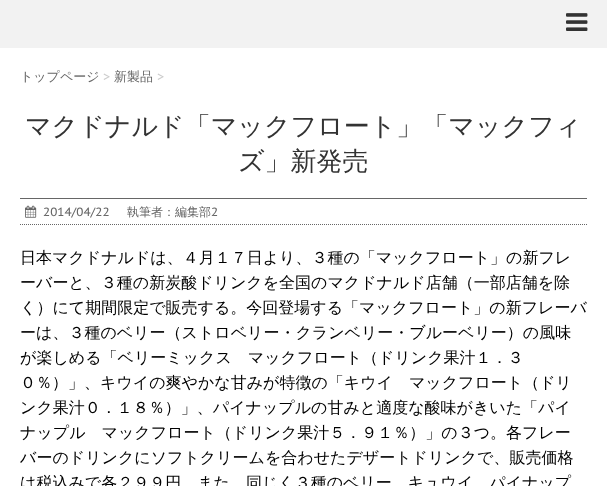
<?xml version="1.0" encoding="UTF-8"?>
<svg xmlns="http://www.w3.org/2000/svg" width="607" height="486">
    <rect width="100%" height="100%" fill="#F2F2F2"/>
    <image x="566" y="13" width="22" height="18" href="img_01.png"/>
    <rect x="0" y="48" width="607" height="438" fill="#FFFFFF"/>
    <text x="20" y="81" font-family="WenQuanYi Zen Hei" font-size="13" font-weight="500" fill="#666666">トップページ</text>
    <text x="103" y="81" font-family="PT Sans Caption" font-size="13" fill="#CCCCCC">&gt;</text>
    <text x="114" y="81" font-family="WenQuanYi Zen Hei" font-size="13" font-weight="500" fill="#666666">新製品</text>
    <text x="157" y="81" font-family="PT Sans Caption" font-size="13" fill="#CCCCCC">&gt;</text>
    <text x="25" y="135" font-family="WenQuanYi Zen Hei" font-size="26" font-weight="500" fill="#333333">マクドナルド「マックフロート」「マックフィ</text>
    <text x="238" y="170" font-family="WenQuanYi Zen Hei" font-size="26" font-weight="500" fill="#333333">ズ」新発売</text>
    <rect x="20" y="198" width="567" height="1" fill="#666666"/>
    <path d="M 20 224.5 H 587" fill="none" stroke="#666666" stroke-dasharray="1 1"/>
    <image x="25" y="205" width="12" height="13" href="img_02.png"/>
    <text x="43" y="216" font-family="PT Sans Caption" font-size="12" fill="#666666">2014/04/22</text>
    <text x="127" y="216" font-family="WenQuanYi Zen Hei" font-size="12" font-weight="500" fill="#666666">執筆者：編集部</text>
    <text x="211" y="216" font-family="PT Sans Caption" font-size="12" fill="#666666">2</text>
    <text font-family="WenQuanYi Zen Hei" font-size="16" font-weight="500" fill="#000000">
        <tspan x="20" y="263">日本マクドナルドは、４月１７日より、３種の「マックフロート」の新フレ</tspan>
        <tspan x="20" y="288">ーバーと、３種の新炭酸ドリンクを全国のマクドナルド店舗（一部店舗を除</tspan>
        <tspan x="20" y="313">く）にて期間限定で販売する。今回登場する「マックフロート」の新フレーバ</tspan>
        <tspan x="20" y="338">ーは、３種のベリー（ストロベリー・クランベリー・ブルーベリー）の風味</tspan>
        <tspan x="20" y="363">が楽しめる「ベリーミックス　マックフロート（ドリンク果汁１．３</tspan>
        <tspan x="20" y="388">０％）」、キウイの爽やかな甘みが特徴の「キウイ　マックフロート（ドリ</tspan>
        <tspan x="20" y="413">ンク果汁０．１８％）」、パイナップルの甘みと適度な酸味がきいた「パイ</tspan>
        <tspan x="20" y="438">ナップル　マックフロート（ドリンク果汁５．９１％）」の３つ。各フレー</tspan>
        <tspan x="20" y="463">バーのドリンクにソフトクリームを合わせたデザートドリンクで、販売価格</tspan>
        <tspan x="20" y="488">は税込みで各２９９円。また、同じく３種のベリー、キュウイ、パイナップ</tspan>
    </text>
</svg>
